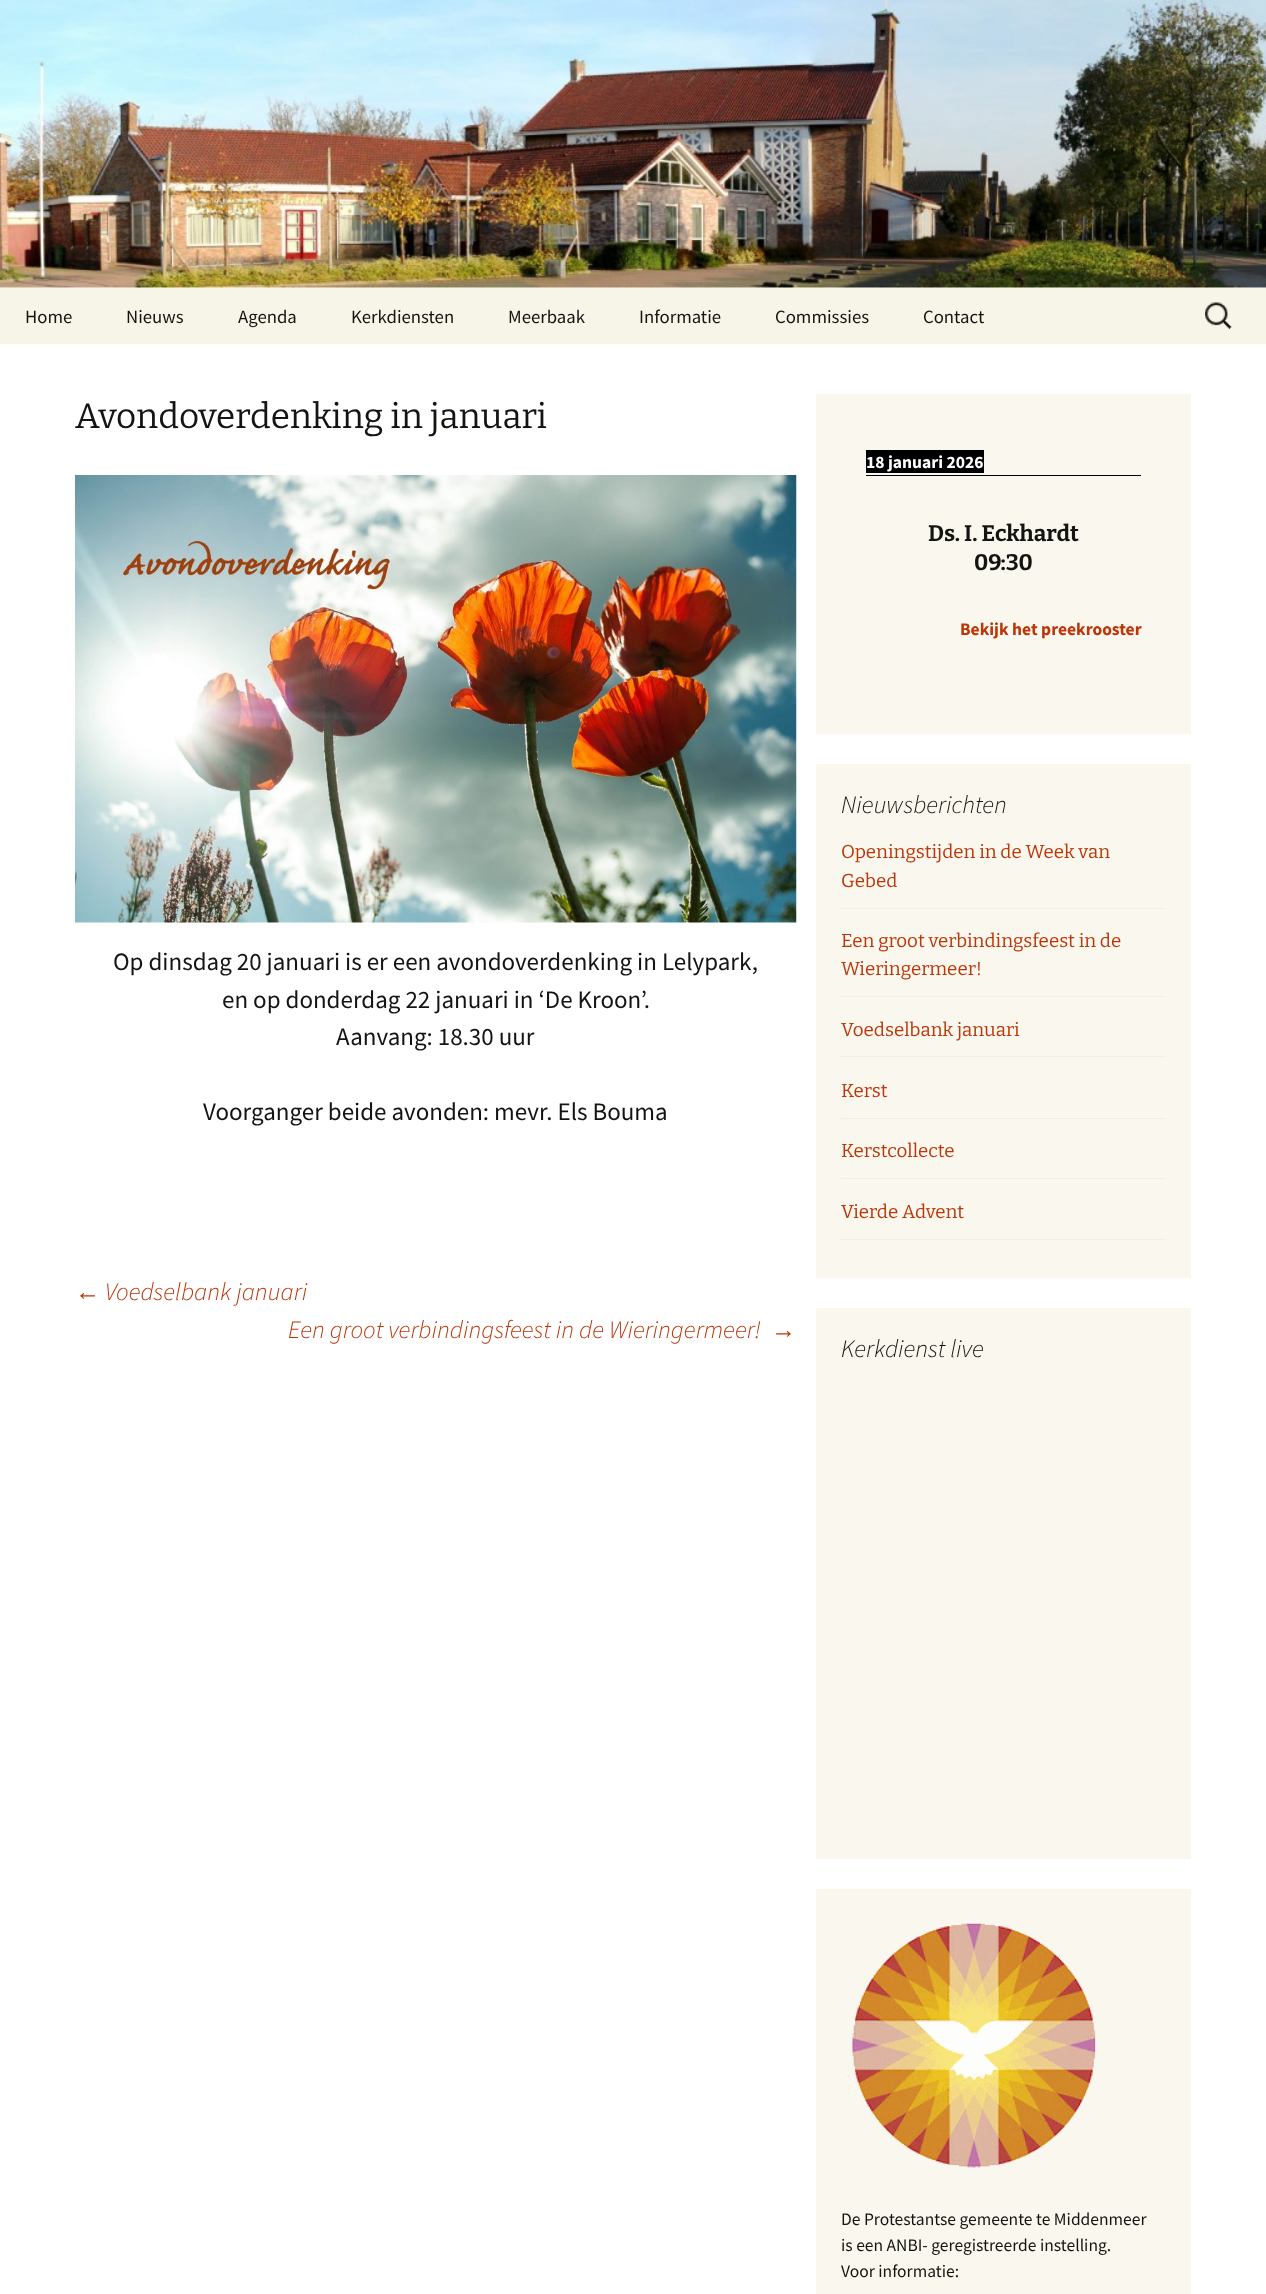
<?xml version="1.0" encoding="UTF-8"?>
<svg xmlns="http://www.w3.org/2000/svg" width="1266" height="2294">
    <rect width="100%" height="100%" fill="#FFFFFF"/>
    <image x="0" y="0" width="1266" height="288" href="img_01.png"/>
    <rect x="0" y="288" width="1266" height="56" fill="#F7F5E7"/>
    <text x="25" y="323" font-family="Source Sans Pro" font-size="18.75" fill="#141412">Home</text>
    <text x="126" y="323" font-family="Source Sans Pro" font-size="18.75" fill="#141412">Nieuws</text>
    <text x="238" y="323" font-family="Source Sans Pro" font-size="18.75" fill="#141412">Agenda</text>
    <text x="351" y="323" font-family="Source Sans Pro" font-size="18.75" fill="#141412">Kerkdiensten</text>
    <text x="508" y="323" font-family="Source Sans Pro" font-size="18.75" fill="#141412">Meerbaak</text>
    <text x="639" y="323" font-family="Source Sans Pro" font-size="18.75" fill="#141412">Informatie</text>
    <text x="775" y="323" font-family="Source Sans Pro" font-size="18.75" fill="#141412">Commissies</text>
    <text x="923" y="323" font-family="Source Sans Pro" font-size="18.75" fill="#141412">Contact</text>
    <image x="1205" y="302" width="27" height="27" href="img_02.png"/>
    <text x="75" y="428" font-family="Bitter" font-size="35" font-weight="100" fill="#141412">Avondoverdenking in januari</text>
    <image x="75" y="475" width="722" height="448" href="img_03.png"/>
    <text x="113" y="970" font-family="Source Sans Pro" font-size="25" fill="#141412">Op dinsdag 20 januari is er een avondoverdenking in Lelypark,</text>
    <text x="222" y="1008" font-family="Source Sans Pro" font-size="25" fill="#141412">en op donderdag 22 januari in ‘De Kroon’.</text>
    <text x="336" y="1045" font-family="Source Sans Pro" font-size="25" fill="#141412">Aanvang: 18.30 uur</text>
    <text x="203" y="1120" font-family="Source Sans Pro" font-size="25" fill="#141412">Voorganger beide avonden: mevr. Els Bouma</text>
    <text x="75" y="1300" font-family="Liberation Sans" font-size="25" font-style="italic" fill="#BC360A">←</text>
    <text x="105" y="1300" font-family="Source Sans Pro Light" font-size="25" font-weight="300" font-style="italic" fill="#BC360A">Voedselbank januari</text>
    <text x="288" y="1338" font-family="Source Sans Pro Light" font-size="25" font-weight="300" font-style="italic" fill="#BC360A">Een groot verbindingsfeest in de Wieringermeer!</text>
    <text x="771" y="1338" font-family="Liberation Sans" font-size="25" font-style="italic" fill="#BC360A">→</text>
    <rect x="816" y="394" width="375" height="340" fill="#FAF8EE"/>
    <rect x="866" y="475" width="275" height="1" fill="#000000"/>
    <rect x="866" y="450" width="118" height="23" fill="#000000"/>
    <text x="866" y="468" font-family="Source Sans Pro" font-size="17.5" font-weight="700" fill="#FFFFFF">18 januari 2026</text>
    <text x="928" y="541" font-family="'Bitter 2'" font-size="22.5" font-weight="100" fill="#141412">Ds. I. Eckhardt</text>
    <text x="974" y="570" font-family="'Bitter 2'" font-size="22.5" font-weight="100" fill="#141412">09:30</text>
    <text x="960" y="635" font-family="Source Sans Pro" font-size="17.5" font-weight="700" fill="#BC360A">Bekijk het preekrooster</text>
    <rect x="816" y="764" width="375" height="514" fill="#FAF8EE"/>
    <text x="841" y="813" font-family="Source Sans Pro Light" font-size="25" font-weight="300" font-style="italic" fill="#141412">Nieuwsberichten</text>
    <rect x="841" y="908" width="325" height="1" fill="#EEEEEE"/>
    <text font-family="Bitter" font-size="18.75" font-weight="100" fill="#BC360A">
        <tspan x="841" y="858">Openingstijden in de Week van</tspan>
        <tspan x="841" y="887">Gebed</tspan>
    </text>
    <rect x="841" y="996" width="325" height="1" fill="#EEEEEE"/>
    <text font-family="Bitter" font-size="18.75" font-weight="100" fill="#BC360A">
        <tspan x="841" y="947">Een groot verbindingsfeest in de</tspan>
        <tspan x="841" y="975">Wieringermeer!</tspan>
    </text>
    <rect x="841" y="1056" width="325" height="1" fill="#EEEEEE"/>
    <text x="841" y="1036" font-family="Bitter" font-size="18.75" font-weight="100" fill="#BC360A">Voedselbank januari</text>
    <rect x="841" y="1118" width="325" height="1" fill="#EEEEEE"/>
    <text x="841" y="1097" font-family="Bitter" font-size="18.75" font-weight="100" fill="#BC360A">Kerst</text>
    <rect x="841" y="1178" width="325" height="1" fill="#EEEEEE"/>
    <text x="841" y="1157" font-family="Bitter" font-size="18.75" font-weight="100" fill="#BC360A">Kerstcollecte</text>
    <rect x="841" y="1239" width="325" height="1" fill="#EEEEEE"/>
    <text x="841" y="1218" font-family="Bitter" font-size="18.75" font-weight="100" fill="#BC360A">Vierde Advent</text>
    <rect x="816" y="1308" width="375" height="551" fill="#FAF8EE"/>
    <text x="841" y="1357" font-family="Source Sans Pro Light" font-size="25" font-weight="300" font-style="italic" fill="#141412">Kerkdienst live</text>
    <rect x="816" y="1889" width="375" height="405" fill="#FAF8EE"/>
    <image x="847" y="1923" width="249" height="246" href="img_04.png"/>
    <text font-family="Source Sans Pro" font-size="17.5" fill="#141412">
        <tspan x="841" y="2225">De Protestantse gemeente te Middenmeer</tspan>
        <tspan x="841" y="2251">is een ANBI- geregistreerde instelling.</tspan>
        <tspan x="841" y="2277">Voor informatie:</tspan>
    </text>
</svg>
